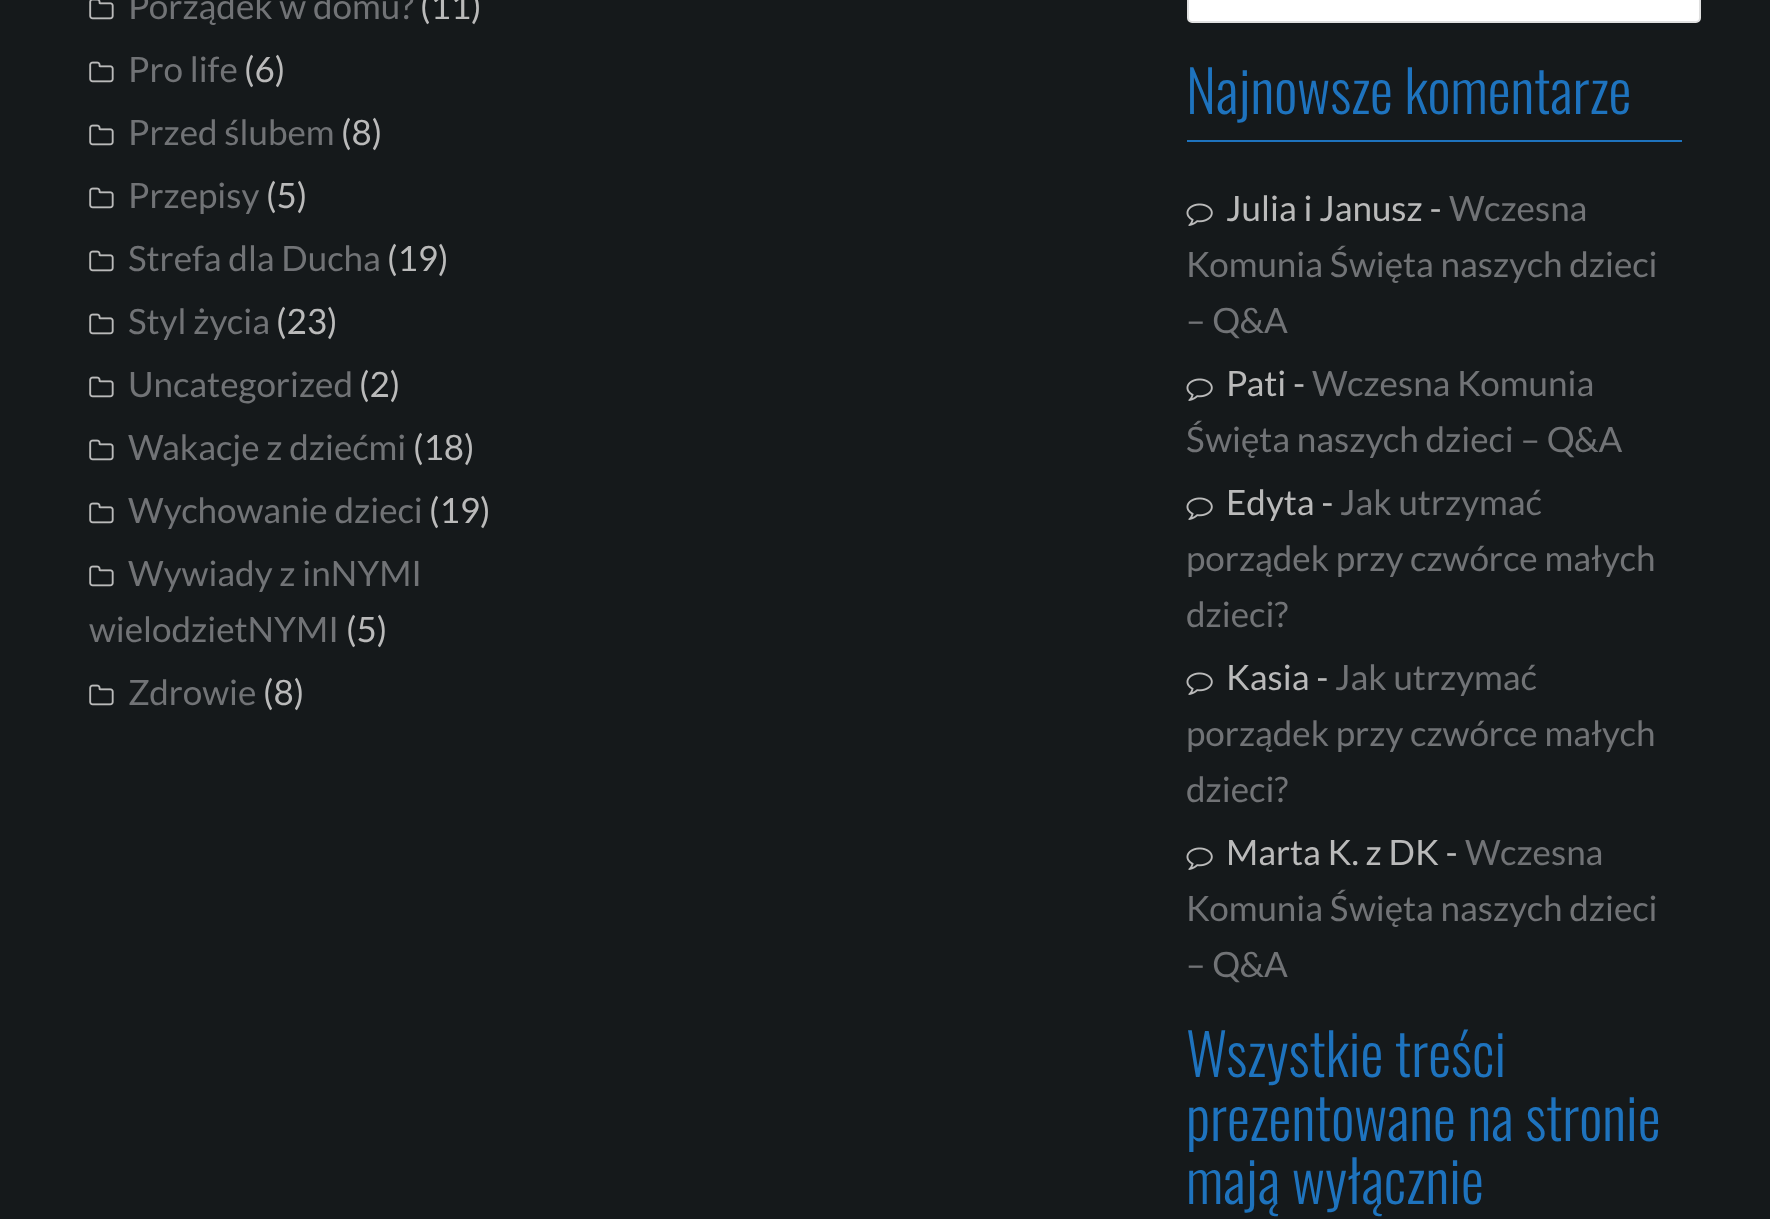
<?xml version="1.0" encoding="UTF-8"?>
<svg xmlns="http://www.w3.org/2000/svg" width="1770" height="1219">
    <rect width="100%" height="100%" fill="#15191B"/>
    <image x="89" y="0" width="25" height="20" href="img_01.png"/>
    <text x="128" y="19" font-family="Lato" font-size="35" fill="#717376">Porządek w domu?</text>
    <text x="420" y="19" font-family="Lato" font-size="35" fill="#BABABA">(11)</text>
    <image x="89" y="61" width="25" height="22" href="img_02.png"/>
    <text x="128" y="82" font-family="Lato" font-size="35" fill="#717376">Pro life</text>
    <text x="244" y="82" font-family="Lato" font-size="35" fill="#BABABA">(6)</text>
    <image x="89" y="124" width="25" height="22" href="img_02.png"/>
    <text x="128" y="145" font-family="Lato" font-size="35" fill="#717376">Przed ślubem</text>
    <text x="341" y="145" font-family="Lato" font-size="35" fill="#BABABA">(8)</text>
    <image x="89" y="187" width="25" height="22" href="img_02.png"/>
    <text x="128" y="208" font-family="Lato" font-size="35" fill="#717376">Przepisy</text>
    <text x="266" y="208" font-family="Lato" font-size="35" fill="#BABABA">(5)</text>
    <image x="89" y="250" width="25" height="22" href="img_02.png"/>
    <text x="128" y="271" font-family="Lato" font-size="35" fill="#717376">Strefa dla Ducha</text>
    <text x="387" y="271" font-family="Lato" font-size="35" fill="#BABABA">(19)</text>
    <image x="89" y="313" width="25" height="22" href="img_02.png"/>
    <text x="128" y="334" font-family="Lato" font-size="35" fill="#717376">Styl życia</text>
    <text x="276" y="334" font-family="Lato" font-size="35" fill="#BABABA">(23)</text>
    <image x="89" y="376" width="25" height="22" href="img_02.png"/>
    <text x="128" y="397" font-family="Lato" font-size="35" fill="#717376">Uncategorized</text>
    <text x="359" y="397" font-family="Lato" font-size="35" fill="#BABABA">(2)</text>
    <image x="89" y="439" width="25" height="22" href="img_03.png"/>
    <text x="128" y="460" font-family="Lato" font-size="35" fill="#717376">Wakacje z dziećmi</text>
    <text x="413" y="460" font-family="Lato" font-size="35" fill="#BABABA">(18)</text>
    <image x="89" y="502" width="25" height="22" href="img_02.png"/>
    <text x="128" y="523" font-family="Lato" font-size="35" fill="#717376">Wychowanie dzieci</text>
    <text x="429" y="523" font-family="Lato" font-size="35" fill="#BABABA">(19)</text>
    <image x="89" y="565" width="25" height="22" href="img_02.png"/>
    <text x="128" y="586" font-family="Lato" font-size="35" fill="#717376">Wywiady z inNYMI</text>
    <text x="89" y="642" font-family="Lato" font-size="35" fill="#717376">wielodzietNYMI</text>
    <text x="346" y="642" font-family="Lato" font-size="35" fill="#BABABA">(5)</text>
    <image x="89" y="684" width="25" height="22" href="img_02.png"/>
    <text x="128" y="705" font-family="Lato" font-size="35" fill="#717376">Zdrowie</text>
    <text x="263" y="705" font-family="Lato" font-size="35" fill="#BABABA">(8)</text>
    <rect x="1188" y="-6" width="512" height="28" rx="4" fill="#FFFFFF" stroke="#E0E0E0" stroke-width="2"/>
    <rect x="1187" y="140" width="495" height="2" fill="#1E73BE"/>
    <text x="1186" y="114" font-family="Oswald" font-size="57.75" font-weight="300" fill="#1E73BE">Najnowsze komentarze</text>
    <image x="1186" y="203" width="27" height="23" href="img_04.png"/>
    <text x="1226" y="221" font-family="Lato" font-size="35" fill="#BABABA">Julia i Janusz -</text>
    <text x="1449" y="221" font-family="Lato" font-size="35" fill="#717376">Wczesna</text>
    <text font-family="Lato" font-size="35" fill="#717376">
        <tspan x="1186" y="277">Komunia Święta naszych dzieci</tspan>
        <tspan x="1186" y="333">– Q&amp;A</tspan>
    </text>
    <image x="1186" y="378" width="27" height="23" href="img_04.png"/>
    <text x="1226" y="396" font-family="Lato" font-size="35" fill="#BABABA">Pati -</text>
    <text x="1312" y="396" font-family="Lato" font-size="35" fill="#717376">Wczesna Komunia</text>
    <text x="1186" y="452" font-family="Lato" font-size="35" fill="#717376">Święta naszych dzieci – Q&amp;A</text>
    <image x="1186" y="497" width="27" height="23" href="img_04.png"/>
    <text x="1226" y="515" font-family="Lato" font-size="35" fill="#BABABA">Edyta -</text>
    <text x="1340" y="515" font-family="Lato" font-size="35" fill="#717376">Jak utrzymać</text>
    <text font-family="Lato" font-size="35" fill="#717376">
        <tspan x="1186" y="571">porządek przy czwórce małych</tspan>
        <tspan x="1186" y="627">dzieci?</tspan>
    </text>
    <image x="1186" y="672" width="27" height="23" href="img_04.png"/>
    <text x="1226" y="690" font-family="Lato" font-size="35" fill="#BABABA">Kasia -</text>
    <text x="1335" y="690" font-family="Lato" font-size="35" fill="#717376">Jak utrzymać</text>
    <text font-family="Lato" font-size="35" fill="#717376">
        <tspan x="1186" y="746">porządek przy czwórce małych</tspan>
        <tspan x="1186" y="802">dzieci?</tspan>
    </text>
    <image x="1186" y="847" width="27" height="23" href="img_04.png"/>
    <text x="1226" y="865" font-family="Lato" font-size="35" fill="#BABABA">Marta K. z DK -</text>
    <text x="1465" y="865" font-family="Lato" font-size="35" fill="#717376">Wczesna</text>
    <text font-family="Lato" font-size="35" fill="#717376">
        <tspan x="1186" y="921">Komunia Święta naszych dzieci</tspan>
        <tspan x="1186" y="977">– Q&amp;A</tspan>
    </text>
    <text font-family="Oswald" font-size="57.75" font-weight="300" fill="#1E73BE">
        <tspan x="1186" y="1077">Wszystkie treści</tspan>
        <tspan x="1186" y="1141">prezentowane na stronie</tspan>
        <tspan x="1186" y="1204">mają wyłącznie</tspan>
    </text>
</svg>
